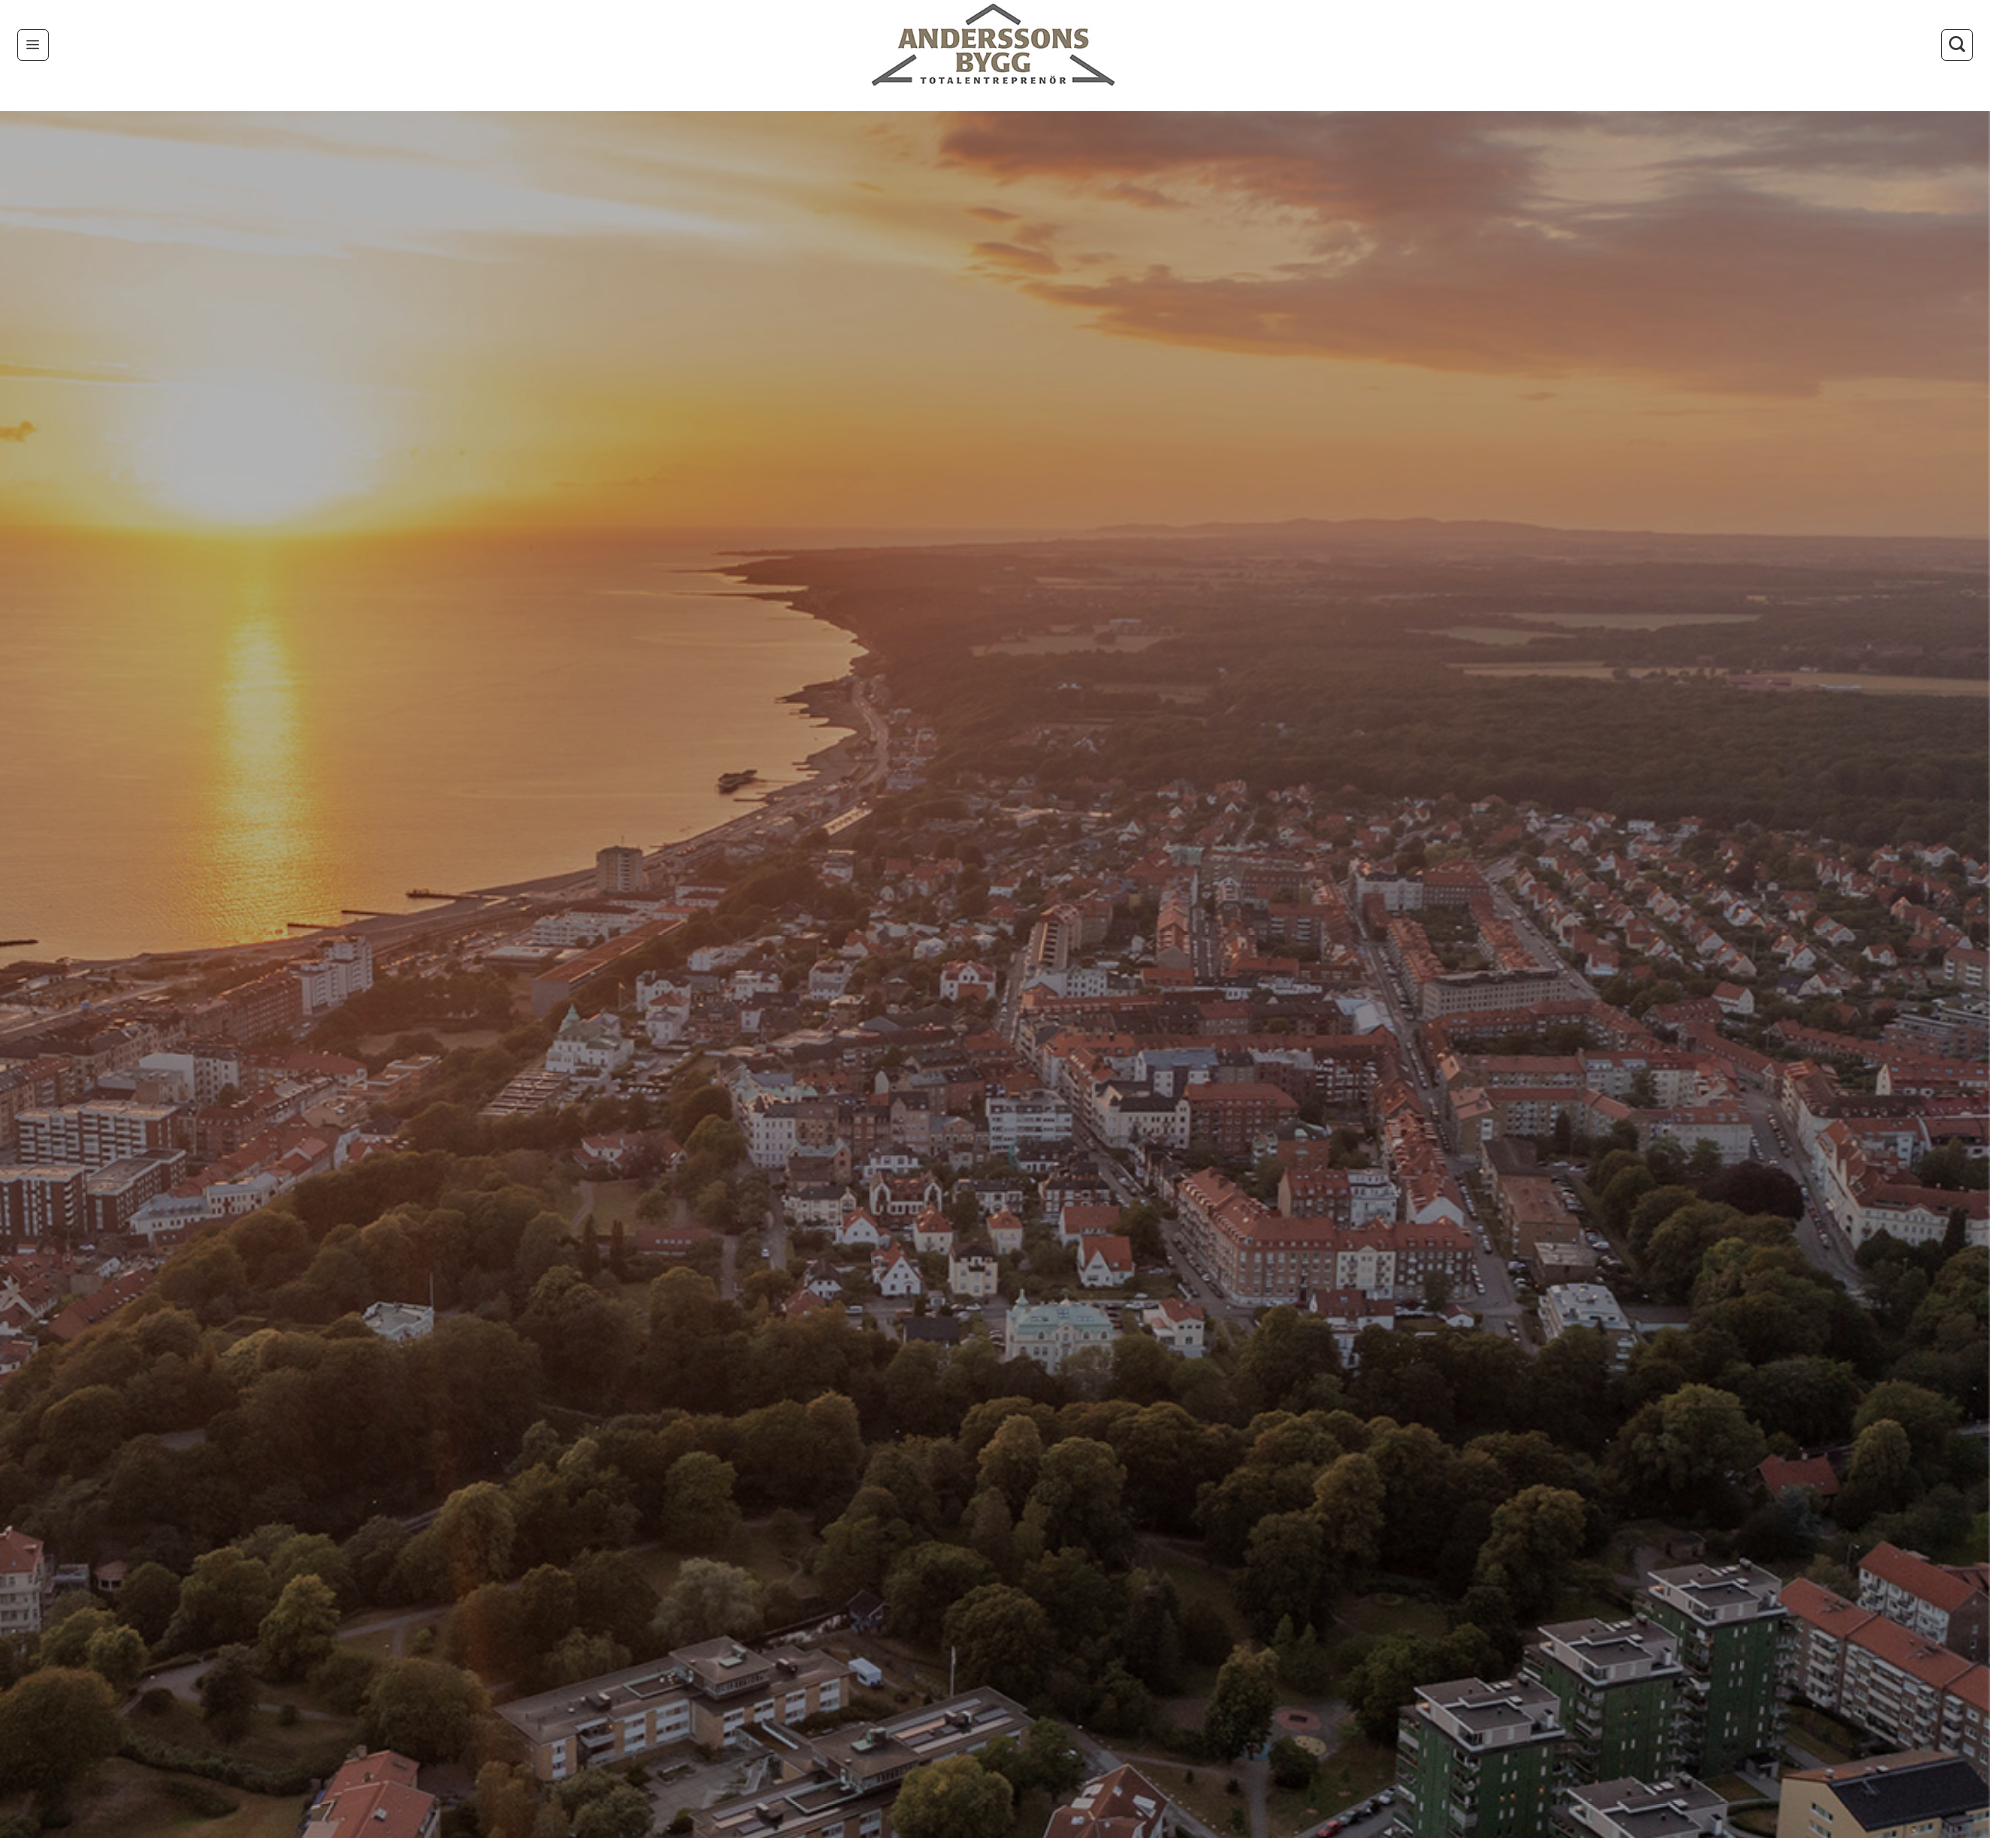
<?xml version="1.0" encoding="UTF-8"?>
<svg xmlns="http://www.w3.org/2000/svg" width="1990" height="1838">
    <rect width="100%" height="100%" fill="#FFFFFF"/>
    <rect x="17.5" y="29.5" width="31" height="31" rx="4.5" fill="none" stroke="#333333"/>
    <image x="26" y="40" width="13" height="10" href="img_01.png"/>
    <image x="871" y="3" width="244" height="83" href="img_02.png"/>
    <rect x="1941.5" y="29.5" width="31" height="31" rx="4.5" fill="none" stroke="#333333"/>
    <image x="1949" y="36" width="16" height="16" href="img_03.png"/>
    <image x="0" y="111" width="1990" height="1727" href="img_04.png"/>
</svg>
